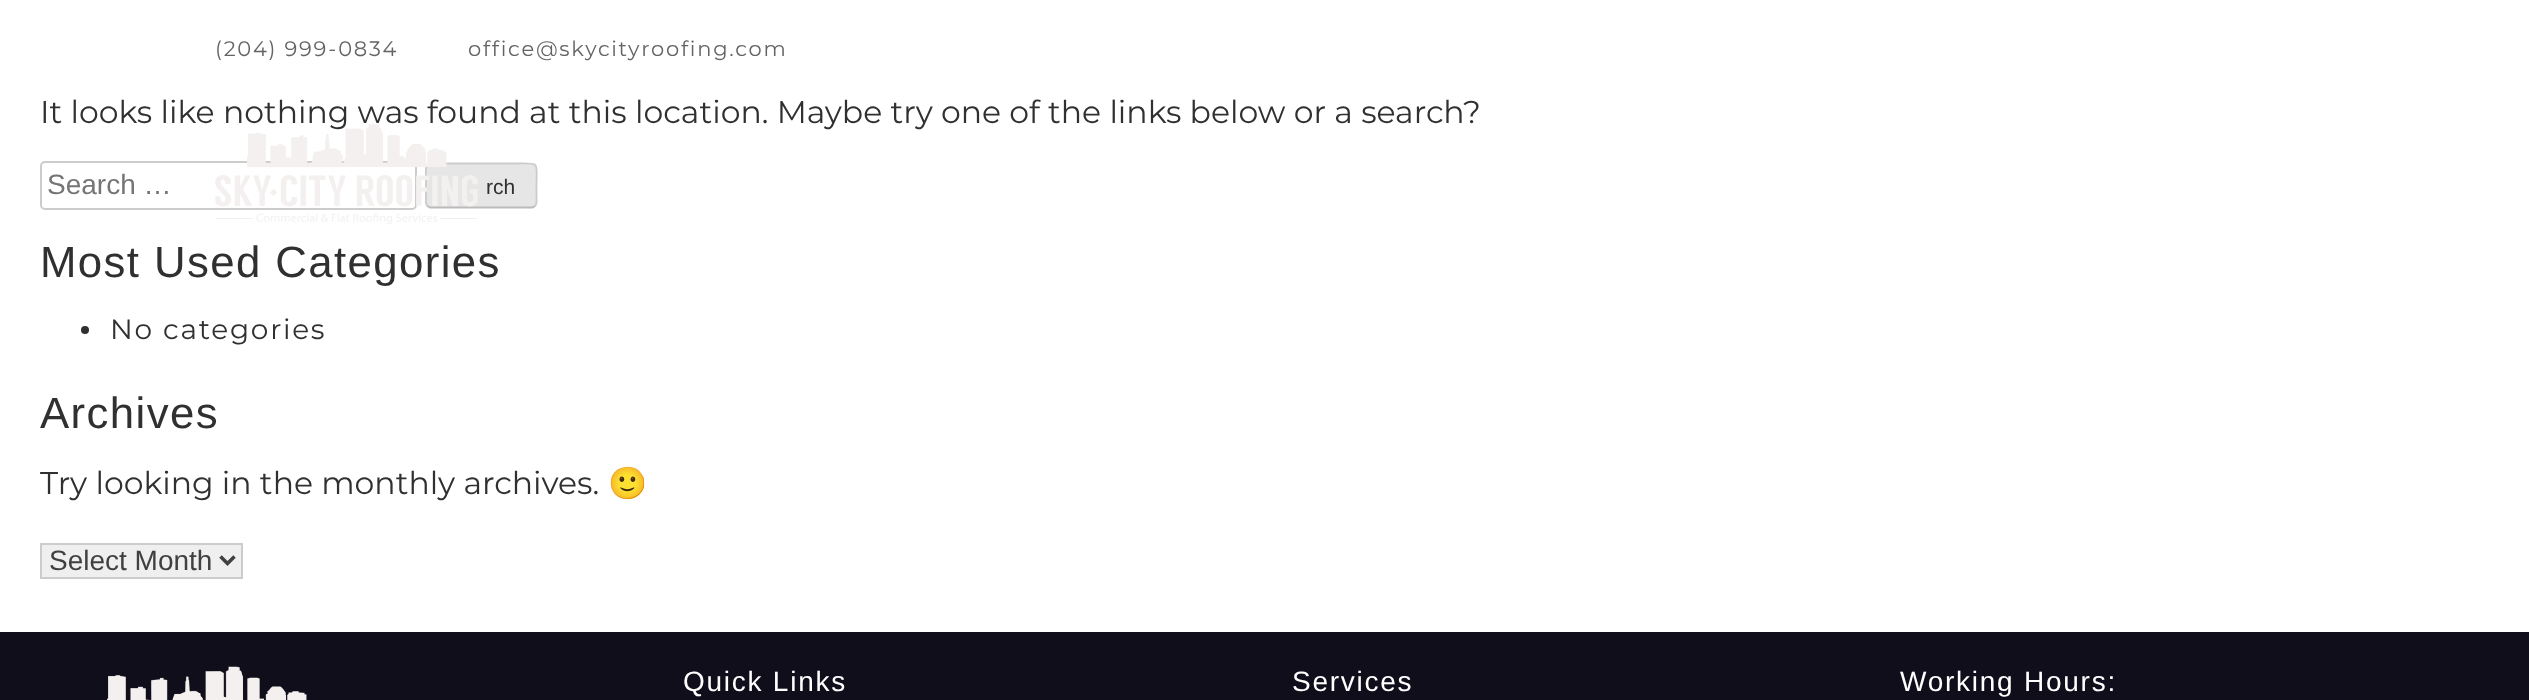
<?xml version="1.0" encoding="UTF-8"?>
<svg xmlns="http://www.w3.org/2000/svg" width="2529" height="700">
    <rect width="100%" height="100%" fill="#FFFFFF"/>
    <text x="215" y="56" font-family="Montserrat" font-size="21" letter-spacing="1.75" fill="#646464">(204) 999-0834</text>
    <text x="468" y="56" font-family="Montserrat" font-size="21" letter-spacing="1.75" fill="#646464">office@skycityroofing.com</text>
    <text x="40" y="123" font-family="Montserrat" font-size="31.5" fill="#303030">It looks like nothing was found at this location. Maybe try one of the links below or a search?</text>
    <rect x="41" y="162" width="375" height="47" rx="4" fill="none" stroke="#CCCCCC" stroke-width="2"/>
    <rect x="425" y="163" width="112" height="45" rx="5" fill="#E6E6E6"/>
    <path d="M 535 206 L 532.5 207.5 H 430 L 427.5 206" fill="none" stroke="#BBBBBB" stroke-width="1.8"/>
    <path d="M 427.5 206 C 425 204 426 199.5 426 197 V 185.5 C 426 160.5 422 163.5 447.5 163.5 H 515 C 540.5 163.5 536.5 160.5 536.5 185.5 V 197 C 536.5 199.5 537.5 204 535 206" fill="none" stroke="#CCCCCC" stroke-width="1.8"/>
    <image x="215" y="124" width="263" height="100" href="img_01.png"/>
    <text x="47" y="194" font-family="Liberation Sans" font-size="28" fill="#757575">Search …</text>
    <text x="486" y="194" font-family="Liberation Sans" font-size="21" fill="#303030">rch</text>
    <text x="40" y="277" font-family="Liberation Sans" font-size="43.75" letter-spacing="1.4" fill="#303030">Most Used Categories</text>
    <circle cx="85" cy="330" r="4" fill="#303030"/>
    <text x="110" y="339" font-family="Montserrat" font-size="28" letter-spacing="1.75" fill="#303030">No categories</text>
    <text x="40" y="428" font-family="Liberation Sans" font-size="43.75" letter-spacing="1.4" fill="#303030">Archives</text>
    <text x="40" y="494" font-family="Montserrat" font-size="31.5" fill="#303030">Try looking in the monthly archives.</text>
    <text x="608" y="494" font-family="Noto Color Emoji" font-size="31.5" fill="#303030">🙂</text>
    <rect x="41" y="544" width="201" height="34" fill="#EFEFEF" stroke="#CCCCCC" stroke-width="2"/>
    <path d="M 220.5 556.5 L 227.5 563.5 L 234.5 556.5" fill="none" stroke="#404040" stroke-width="3.5"/>
    <text x="49" y="570" font-family="Liberation Sans" font-size="28" fill="#404040">Select Month</text>
    <rect x="0" y="632" width="2529" height="68" fill="#100E1B"/>
    <image x="107" y="666" width="200" height="34" href="img_02.png"/>
    <text x="683" y="691" font-family="Liberation Sans" font-size="28" letter-spacing="1.75" fill="#FFFFFF">Quick Links</text>
    <text x="1292" y="691" font-family="Liberation Sans" font-size="28" letter-spacing="1.75" fill="#FFFFFF">Services</text>
    <text x="1900" y="691" font-family="Liberation Sans" font-size="28" letter-spacing="1.75" fill="#FFFFFF">Working Hours:</text>
</svg>
